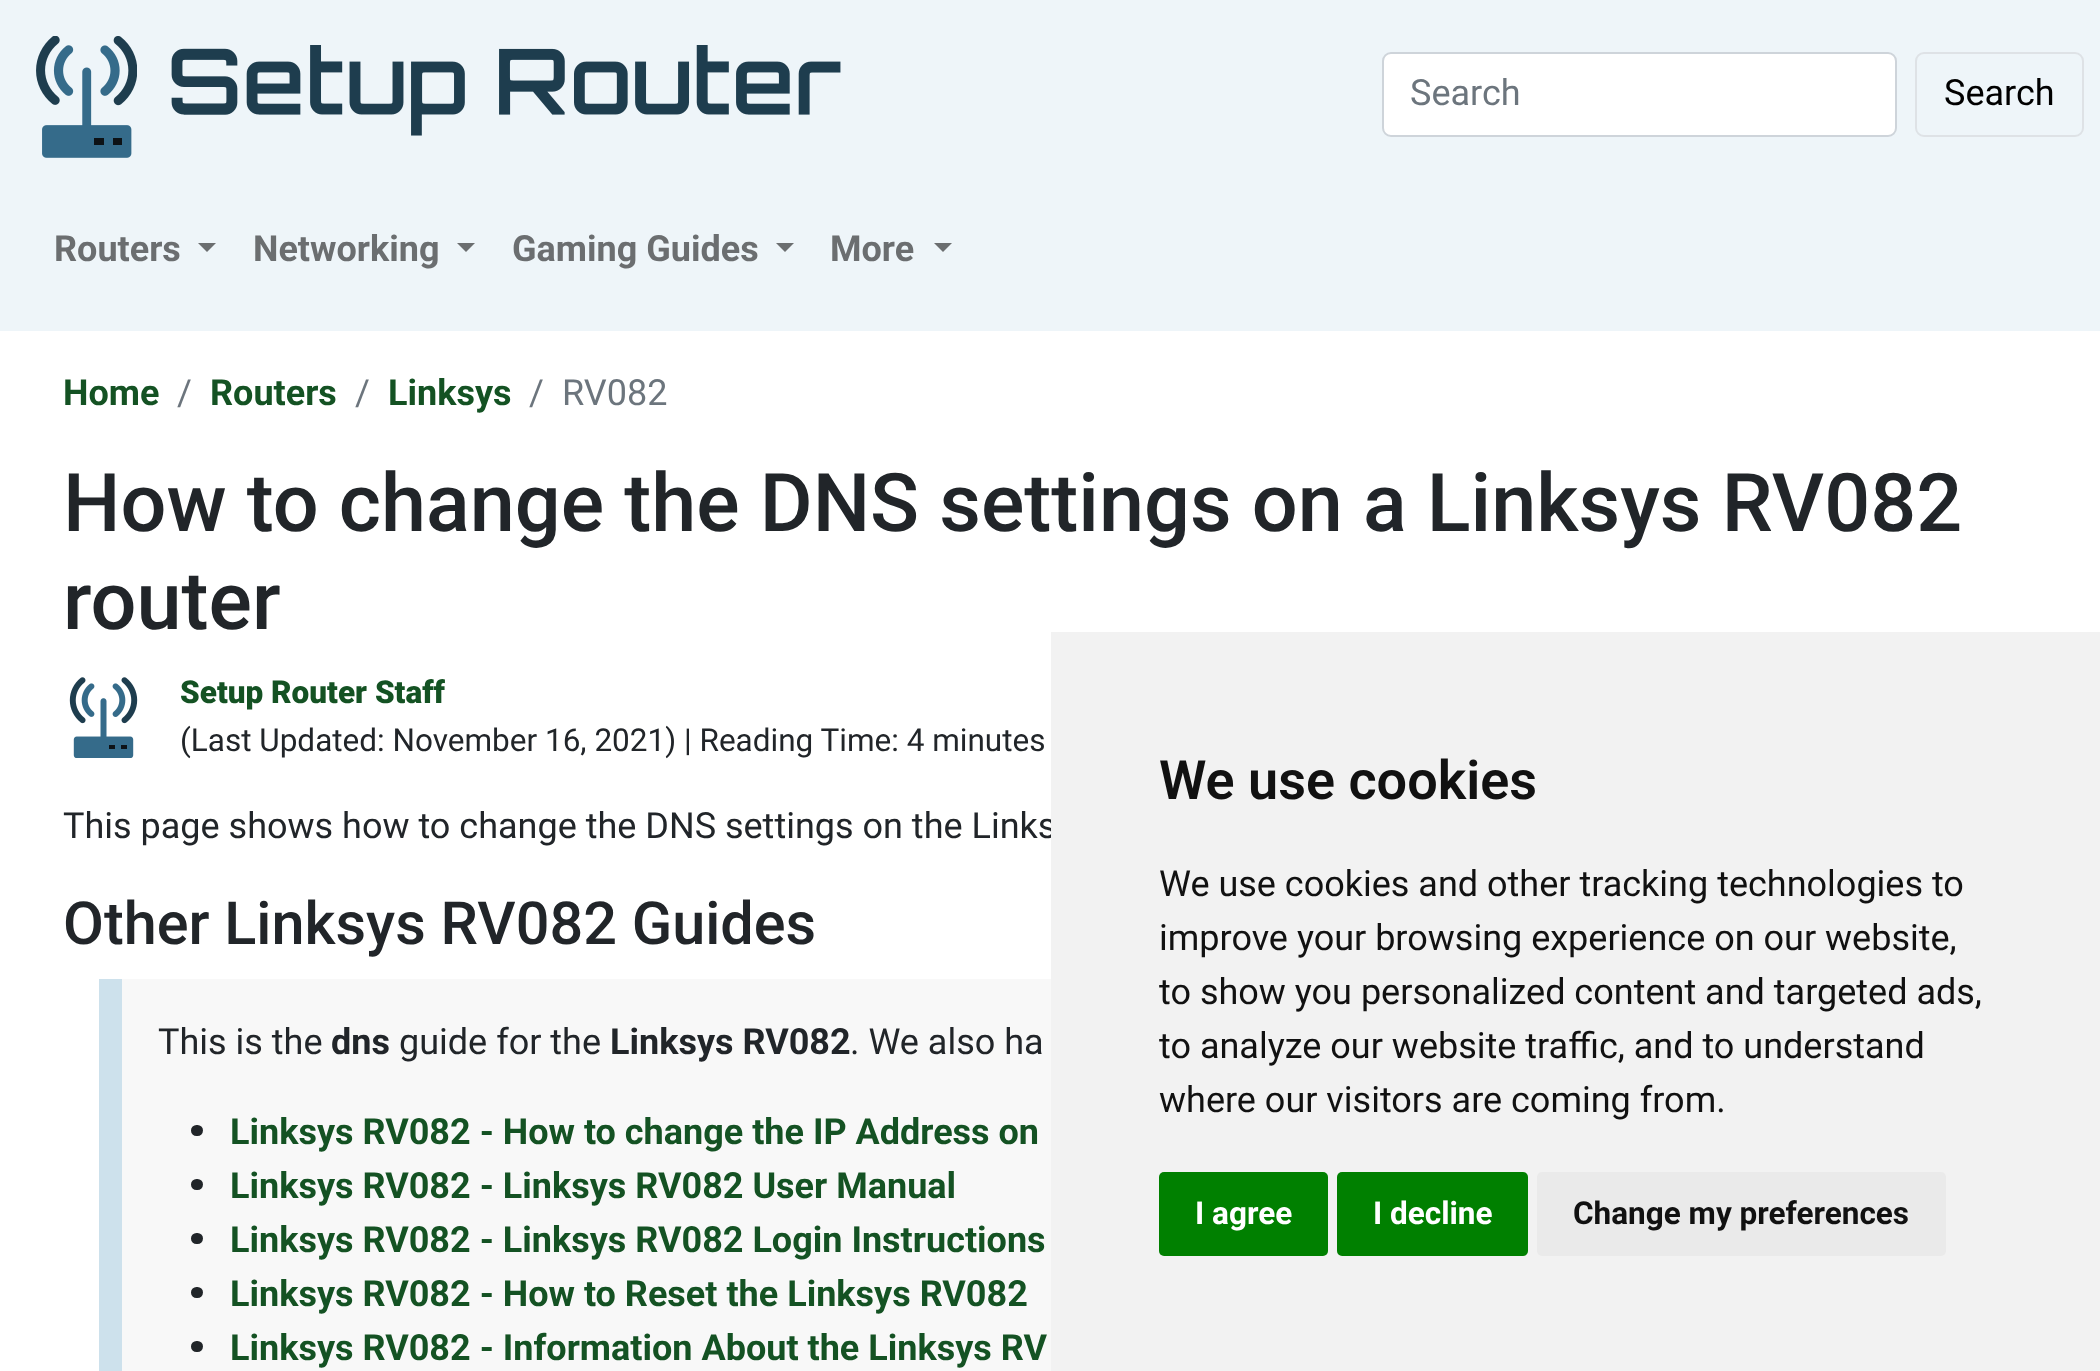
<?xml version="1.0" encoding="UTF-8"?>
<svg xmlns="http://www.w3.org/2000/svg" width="2100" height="1371">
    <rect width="100%" height="100%" fill="#FFFFFF"/>
    <rect x="0" y="0" width="2100" height="331" fill="#EEF5F9"/>
    <image x="36" y="36" width="101" height="122" href="img_01.png"/>
    <image x="171" y="45" width="670" height="91" href="img_02.png"/>
    <rect x="1383" y="53" width="513" height="83" rx="8" fill="#FFFFFF" stroke="#CED4DA" stroke-width="2"/>
    <text x="1410" y="105" font-family="Roboto" font-size="36" fill="#6C757D">Search</text>
    <rect x="1916" y="53" width="167" height="83" rx="8" fill="none" stroke="#DEE2E6" stroke-width="2"/>
    <text x="1944" y="105" font-family="Roboto" font-size="36" fill="#000000">Search</text>
    <text x="54" y="261" font-family="Roboto" font-size="36" font-weight="700" fill="#6B6E70">Routers</text>
    <path d="M 198 243 H 216 L 207 252 Z" fill="#6B6E70"/>
    <text x="253" y="261" font-family="Roboto" font-size="36" font-weight="700" fill="#6B6E70">Networking</text>
    <path d="M 457 243 H 475 L 466 252 Z" fill="#6B6E70"/>
    <text x="512" y="261" font-family="Roboto" font-size="36" font-weight="700" fill="#6B6E70">Gaming Guides</text>
    <path d="M 776 243 H 794 L 785 252 Z" fill="#6B6E70"/>
    <text x="830" y="261" font-family="Roboto" font-size="36" font-weight="700" fill="#6B6E70">More</text>
    <path d="M 934 243 H 952 L 943 252 Z" fill="#6B6E70"/>
    <text x="63" y="405" font-family="Roboto" font-size="36" font-weight="700" fill="#145223">Home</text>
    <text x="177" y="405" font-family="Roboto" font-size="36" fill="#6C757D">/</text>
    <text x="210" y="405" font-family="Roboto" font-size="36" font-weight="700" fill="#145223">Routers</text>
    <text x="355" y="405" font-family="Roboto" font-size="36" fill="#6C757D">/</text>
    <text x="388" y="405" font-family="Roboto" font-size="36" font-weight="700" fill="#145223">Linksys</text>
    <text x="529" y="405" font-family="Roboto" font-size="36" fill="#6C757D">/</text>
    <text x="562" y="405" font-family="Roboto" font-size="36" fill="#6C757D">RV082</text>
    <text font-family="Roboto" font-size="81" font-weight="500" fill="#212529">
        <tspan x="63" y="531">How to change the DNS settings on a Linksys RV082</tspan>
        <tspan x="63" y="629">router</tspan>
    </text>
    <image x="69" y="677" width="69" height="81" href="img_03.png"/>
    <text x="180" y="703" font-family="Roboto" font-size="31.5" font-weight="900" fill="#145223">Setup Router Staff</text>
    <text x="180" y="751" font-family="Roboto" font-size="31.5" fill="#212529">(Last Updated: November 16, 2021) | Reading Time: 4 minutes</text>
    <text x="63" y="838" font-family="Roboto" font-size="36" fill="#212529">This page shows how to change the DNS settings on the Links</text>
    <text x="63" y="944" font-family="Roboto" font-size="59.4" font-weight="500" fill="#212529">Other Linksys RV082 Guides</text>
    <rect x="122" y="979" width="929" height="392" fill="#F8F8F8"/>
    <rect x="99" y="979" width="23" height="392" fill="#CDE1EC"/>
    <text x="158" y="1054" font-family="Roboto" font-size="36" fill="#212529">This is the</text>
    <text x="331" y="1054" font-family="Roboto" font-size="36" font-weight="700" fill="#212529">dns</text>
    <text x="399" y="1054" font-family="Roboto" font-size="36" fill="#212529">guide for the</text>
    <text x="610" y="1054" font-family="Roboto" font-size="36" font-weight="700" fill="#212529">Linksys RV082</text>
    <text x="850" y="1054" font-family="Roboto" font-size="36" fill="#212529">. We also ha</text>
    <rect x="191" y="1125" width="12" height="11" rx="5.5" fill="#212529"/>
    <text x="230" y="1144" font-family="Roboto" font-size="36" font-weight="700" fill="#145223">Linksys RV082 - How to change the IP Address on</text>
    <rect x="191" y="1179" width="12" height="11" rx="5.5" fill="#212529"/>
    <text x="230" y="1198" font-family="Roboto" font-size="36" font-weight="700" fill="#145223">Linksys RV082 - Linksys RV082 User Manual</text>
    <rect x="191" y="1233" width="12" height="11" rx="5.5" fill="#212529"/>
    <text x="230" y="1252" font-family="Roboto" font-size="36" font-weight="700" fill="#145223">Linksys RV082 - Linksys RV082 Login Instructions</text>
    <rect x="191" y="1287" width="12" height="11" rx="5.5" fill="#212529"/>
    <text x="230" y="1306" font-family="Roboto" font-size="36" font-weight="700" fill="#145223">Linksys RV082 - How to Reset the Linksys RV082</text>
    <rect x="191" y="1341" width="12" height="11" rx="5.5" fill="#212529"/>
    <text x="230" y="1360" font-family="Roboto" font-size="36" font-weight="700" fill="#145223">Linksys RV082 - Information About the Linksys RV</text>
    <rect x="1051" y="632" width="1049" height="739" fill="#F2F2F2"/>
    <text x="1159" y="799" font-family="Roboto" font-size="54" font-weight="600" fill="#111111">We use cookies</text>
    <text font-family="Roboto" font-size="36" fill="#111111">
        <tspan x="1159" y="896">We use cookies and other tracking technologies to</tspan>
        <tspan x="1159" y="950">improve your browsing experience on our website,</tspan>
        <tspan x="1159" y="1004">to show you personalized content and targeted ads,</tspan>
        <tspan x="1159" y="1058">to analyze our website traffic, and to understand</tspan>
        <tspan x="1159" y="1112">where our visitors are coming from.</tspan>
    </text>
    <rect x="1159" y="1172" width="169" height="84" rx="5" fill="#008000"/>
    <text x="1195" y="1224" font-family="Roboto" font-size="31.5" font-weight="700" fill="#FFFFFF">I agree</text>
    <rect x="1337" y="1172" width="191" height="84" rx="5" fill="#008000"/>
    <text x="1373" y="1224" font-family="Roboto" font-size="31.5" font-weight="700" fill="#FFFFFF">I decline</text>
    <rect x="1537" y="1172" width="409" height="84" rx="5" fill="#EAEAEA"/>
    <text x="1573" y="1224" font-family="Roboto" font-size="31.5" font-weight="700" fill="#111111">Change my preferences</text>
</svg>
